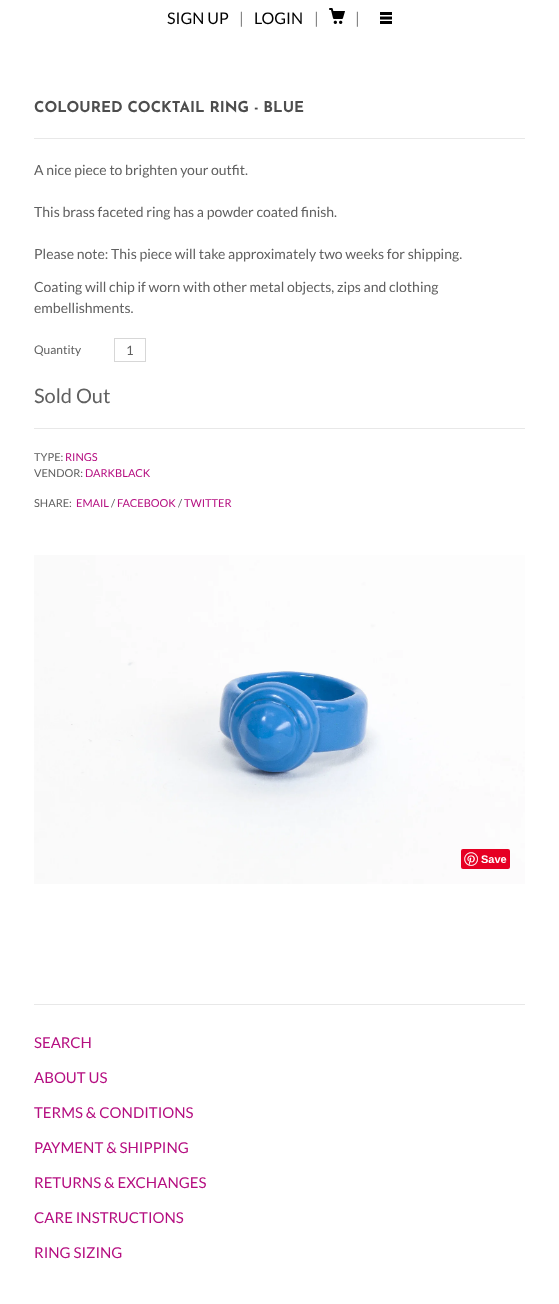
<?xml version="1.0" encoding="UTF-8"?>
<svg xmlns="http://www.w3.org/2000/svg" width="559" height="1304">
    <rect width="100%" height="100%" fill="#FFFFFF"/>
    <text x="167" y="24" font-family="Lato" font-size="16" fill="#000000">SIGN UP</text>
    <text x="239" y="24" font-family="Lato" font-size="16" fill="#808080">|</text>
    <text x="254" y="24" font-family="Lato" font-size="16" fill="#000000">LOGIN</text>
    <text x="314" y="24" font-family="Lato" font-size="16" fill="#808080">|</text>
    <image x="329" y="8" width="16" height="16" href="img_01.png"/>
    <text x="355" y="24" font-family="Lato" font-size="16" fill="#808080">|</text>
    <image x="380" y="12" width="12" height="12" href="img_02.png"/>
    <text x="34" y="112" font-family="Josefin Sans" font-size="15" font-weight="700" fill="#4D4D4D">COLOURED COCKTAIL RING - BLUE</text>
    <rect x="34" y="138" width="491" height="1" fill="#E8E8E8"/>
    <text x="34" y="175" font-family="Lato" font-size="14" fill="#606060">A nice piece to brighten your outfit.</text>
    <text x="34" y="217" font-family="Lato" font-size="14" fill="#606060">This brass faceted ring has a powder coated finish.</text>
    <text x="34" y="259" font-family="Lato" font-size="14" fill="#606060">Please note: This piece will take approximately two weeks for shipping.</text>
    <text font-family="Lato" font-size="14" fill="#606060">
        <tspan x="34" y="292">Coating will chip if worn with other metal objects, zips and clothing</tspan>
        <tspan x="34" y="313">embellishments.</tspan>
    </text>
    <text x="34" y="354" font-family="Lato" font-size="12" fill="#606060">Quantity</text>
    <rect x="114.5" y="338.5" width="31" height="23" fill="none" stroke="#D7D7D7"/>
    <text x="126" y="355" font-family="Lato" font-size="13" fill="#606060">1</text>
    <text x="34" y="403" font-family="Lato" font-size="20" fill="#606060">Sold Out</text>
    <rect x="34" y="428" width="491" height="1" fill="#E8E8E8"/>
    <text x="34" y="461" font-family="Lato" font-size="11" fill="#606060">TYPE:</text>
    <text x="65" y="461" font-family="Lato" font-size="11" fill="#B50E80">RINGS</text>
    <text x="34" y="477" font-family="Lato" font-size="11" fill="#606060">VENDOR:</text>
    <text x="85" y="477" font-family="Lato" font-size="11" fill="#B50E80">DARKBLACK</text>
    <text x="34" y="507" font-family="Lato" font-size="11" fill="#606060">SHARE:</text>
    <text x="76" y="507" font-family="Lato" font-size="11" fill="#B50E80">EMAIL</text>
    <text x="111" y="507" font-family="Lato" font-size="11" fill="#606060">/</text>
    <text x="117" y="507" font-family="Lato" font-size="11" fill="#B50E80">FACEBOOK</text>
    <text x="178" y="507" font-family="Lato" font-size="11" fill="#606060">/</text>
    <text x="184" y="507" font-family="Lato" font-size="11" fill="#B50E80">TWITTER</text>
    <image x="34" y="555" width="491" height="329" href="img_03.png"/>
    <rect x="461" y="849" width="49" height="20" rx="2" fill="#E60023"/>
    <image x="464" y="852" width="14" height="14" href="img_04.png"/>
    <text x="481" y="863" font-family="Liberation Sans" font-size="11" font-weight="700" fill="#FFFFFF">Save</text>
    <rect x="34" y="1004" width="491" height="1" fill="#E8E8E8"/>
    <text x="34" y="1048" font-family="Lato" font-size="15" fill="#B50E80">SEARCH</text>
    <text x="34" y="1083" font-family="Lato" font-size="15" fill="#B50E80">ABOUT US</text>
    <text x="34" y="1118" font-family="Lato" font-size="15" fill="#B50E80">TERMS &amp; CONDITIONS</text>
    <text x="34" y="1153" font-family="Lato" font-size="15" fill="#B50E80">PAYMENT &amp; SHIPPING</text>
    <text x="34" y="1188" font-family="Lato" font-size="15" fill="#B50E80">RETURNS &amp; EXCHANGES</text>
    <text x="34" y="1223" font-family="Lato" font-size="15" fill="#B50E80">CARE INSTRUCTIONS</text>
    <text x="34" y="1258" font-family="Lato" font-size="15" fill="#B50E80">RING SIZING</text>
</svg>
